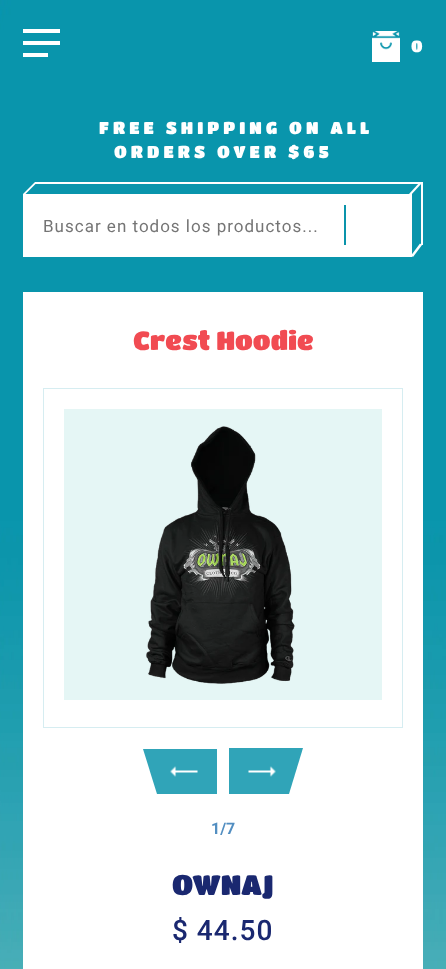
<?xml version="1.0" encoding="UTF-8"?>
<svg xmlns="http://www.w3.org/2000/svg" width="446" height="969">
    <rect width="100%" height="100%" fill="#FFFFFF"/>
    <image x="0" y="0" width="446" height="969" href="img_01.png"/>
    <rect x="23" y="29" width="37" height="4" fill="#FFFFFF"/>
    <rect x="23" y="41" width="37" height="4" fill="#FFFFFF"/>
    <rect x="23" y="53" width="25" height="4" fill="#FFFFFF"/>
    <image x="372" y="31" width="28" height="31" href="img_02.png"/>
    <text x="411" y="52" font-family="Titan One" font-size="16" fill="#FFFFFF">0</text>
    <text x="99" y="134" font-family="Titan One" font-size="17" letter-spacing="4" fill="#FFFFFF">FREE SHIPPING ON ALL</text>
    <text x="114" y="158" font-family="Titan One" font-size="17" letter-spacing="4" fill="#FFFFFF">ORDERS OVER $65</text>
    <rect x="23" y="194" width="389" height="63" fill="#FFFFFF"/>
    <path d="M 23 194 L 35 182 L 36 183.5 L 24 195.5 Z" fill="#FFFFFF"/>
    <path d="M 409 194 L 420 182 L 421.5 183.5 L 410.5 195.5 Z" fill="#FFFFFF"/>
    <rect x="35" y="182" width="388" height="2" fill="#FFFFFF"/>
    <path d="M 411 255.5 L 420 243.5 L 422 245 L 413 257 Z" fill="#FFFFFF"/>
    <rect x="421" y="182" width="2" height="63" fill="#FFFFFF"/>
    <text x="43" y="232" font-family="Roboto" font-size="17" letter-spacing="1" fill="#757575">Buscar en todos los productos...</text>
    <rect x="344" y="205" width="2" height="40" fill="#0A94AB"/>
    <rect x="23" y="292" width="400" height="677" fill="#FFFFFF"/>
    <text x="133" y="350" font-family="Titan One" font-size="26" fill="#F14B52">Crest Hoodie</text>
    <rect x="43.5" y="388.5" width="359" height="339" fill="none" stroke="#D6EDF1"/>
    <rect x="64" y="409" width="318" height="291" fill="#E5F6F5"/>
    <image x="146" y="426" width="149" height="258" href="img_03.png"/>
    <path d="M 217 749 H 143 L 157 794 H 217 Z" fill="#30A4B8"/>
    <image x="170" y="766" width="28" height="11" href="img_04.png"/>
    <path d="M 229 748 H 303 L 289 794 H 229 Z" fill="#30A4B8"/>
    <image x="248" y="766" width="28" height="11" href="img_05.png"/>
    <text x="211" y="834" font-family="Roboto" font-size="16" font-weight="700" fill="#528EC1">1/7</text>
    <text x="172" y="895" font-family="Titan One" font-size="28" fill="#1A2870">OWNAJ</text>
    <text x="172" y="940" font-family="Roboto" font-size="28" font-weight="500" letter-spacing="1" fill="#1A2870">$ 44.50</text>
</svg>
